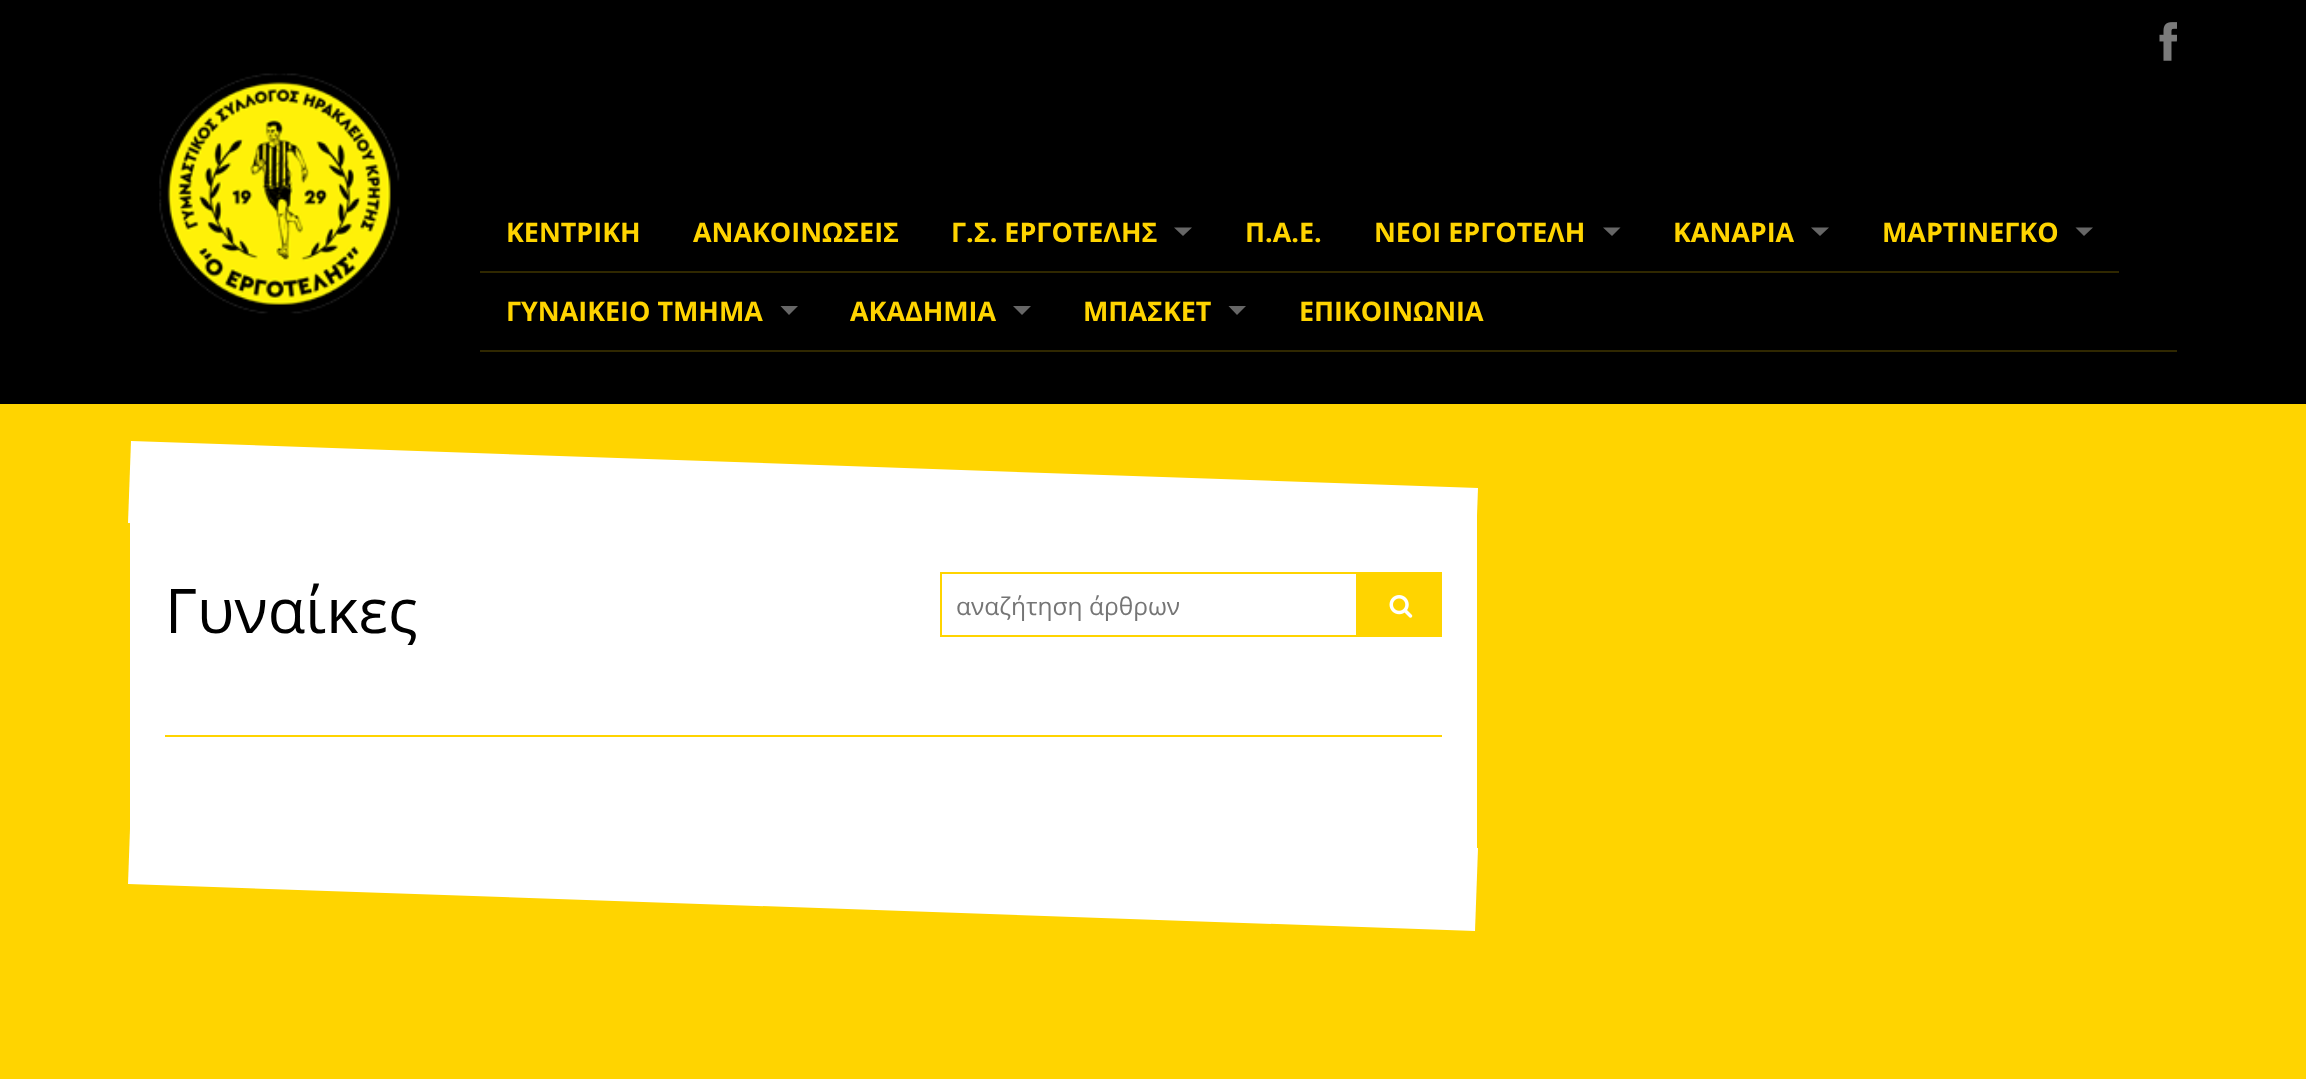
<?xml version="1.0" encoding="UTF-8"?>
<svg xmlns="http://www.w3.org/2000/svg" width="2306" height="1079">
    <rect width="100%" height="100%" fill="#FFD400"/>
    <rect x="0" y="0" width="2306" height="404" fill="#000000"/>
    <image x="2159" y="22" width="18" height="39" href="img_01.png"/>
    <image x="159" y="73" width="241" height="241" href="img_02.png"/>
    <rect x="480" y="350" width="1697" height="2" fill="#302801"/>
    <rect x="480" y="271" width="1639" height="2" fill="#302800"/>
    <text x="506" y="242" font-family="Open Sans" font-size="26.9" font-weight="700" fill="#FFD400">ΚΕΝΤΡΙΚΗ</text>
    <text x="693" y="242" font-family="Open Sans" font-size="26.9" font-weight="700" fill="#FFD400">ΑΝΑΚΟΙΝΩΣΕΙΣ</text>
    <text x="951" y="242" font-family="Open Sans" font-size="26.9" font-weight="700" fill="#FFD400">Γ.Σ. ΕΡΓΟΤΕΛΗΣ</text>
    <path d="M 1174 227.5 H 1192 L 1183 236 Z" fill="#666666"/>
    <text x="1245" y="242" font-family="Open Sans" font-size="26.9" font-weight="700" fill="#FFD400">Π.Α.Ε.</text>
    <text x="1374" y="242" font-family="Open Sans" font-size="26.9" font-weight="700" fill="#FFD400">ΝΕΟΙ ΕΡΓΟΤΕΛΗ</text>
    <path d="M 1603 227.5 H 1620.5 L 1612 236 Z" fill="#666666"/>
    <text x="1673" y="242" font-family="Open Sans" font-size="26.9" font-weight="700" fill="#FFD400">ΚΑΝΑΡΙΑ</text>
    <path d="M 1811 227.5 H 1829 L 1820 236 Z" fill="#666666"/>
    <text x="1882" y="242" font-family="Open Sans" font-size="26.9" font-weight="700" fill="#FFD400">ΜΑΡΤΙΝΕΓΚΟ</text>
    <path d="M 2075.5 227.5 H 2093 L 2084 236 Z" fill="#666666"/>
    <text x="506" y="321" font-family="Open Sans" font-size="26.9" font-weight="700" fill="#FFD400">ΓΥΝΑΙΚΕΙΟ ΤΜΗΜΑ</text>
    <path d="M 780.5 306 H 798 L 789 315 Z" fill="#666666"/>
    <text x="850" y="321" font-family="Open Sans" font-size="26.9" font-weight="700" fill="#FFD400">ΑΚΑΔΗΜΙΑ</text>
    <path d="M 1013 306 H 1031 L 1022 315 Z" fill="#666666"/>
    <text x="1083" y="321" font-family="Open Sans" font-size="26.9" font-weight="700" fill="#FFD400">ΜΠΑΣΚΕΤ</text>
    <path d="M 1228.5 306 H 1246 L 1237 315 Z" fill="#666666"/>
    <text x="1299" y="321" font-family="Open Sans" font-size="26.9" font-weight="700" fill="#FFD400">ΕΠΙΚΟΙΝΩΝΙΑ</text>
    <rect x="130" y="515" width="1347" height="333" fill="#FFFFFF"/>
    <path d="M 131 441 L 1478 488 L 1475 570 L 128 523 Z" fill="#FFFFFF"/>
    <text x="165" y="633" font-family="Open Sans" font-size="61.5" fill="#000000">Γυναίκες</text>
    <rect x="941" y="573" width="416" height="63" fill="none" stroke="#FFD400" stroke-width="2"/>
    <text x="956" y="615" font-family="Open Sans" font-size="24.5" fill="#757575">αναζήτηση άρθρων</text>
    <rect x="1358" y="572" width="84" height="65" fill="#FFD400"/>
    <image x="1389" y="595" width="24" height="23" href="img_03.png"/>
    <rect x="165" y="735" width="1277" height="2" fill="#FFD400"/>
    <path d="M 131 801 L 1478 848 L 1475 931 L 128 884 Z" fill="#FFFFFF"/>
</svg>
